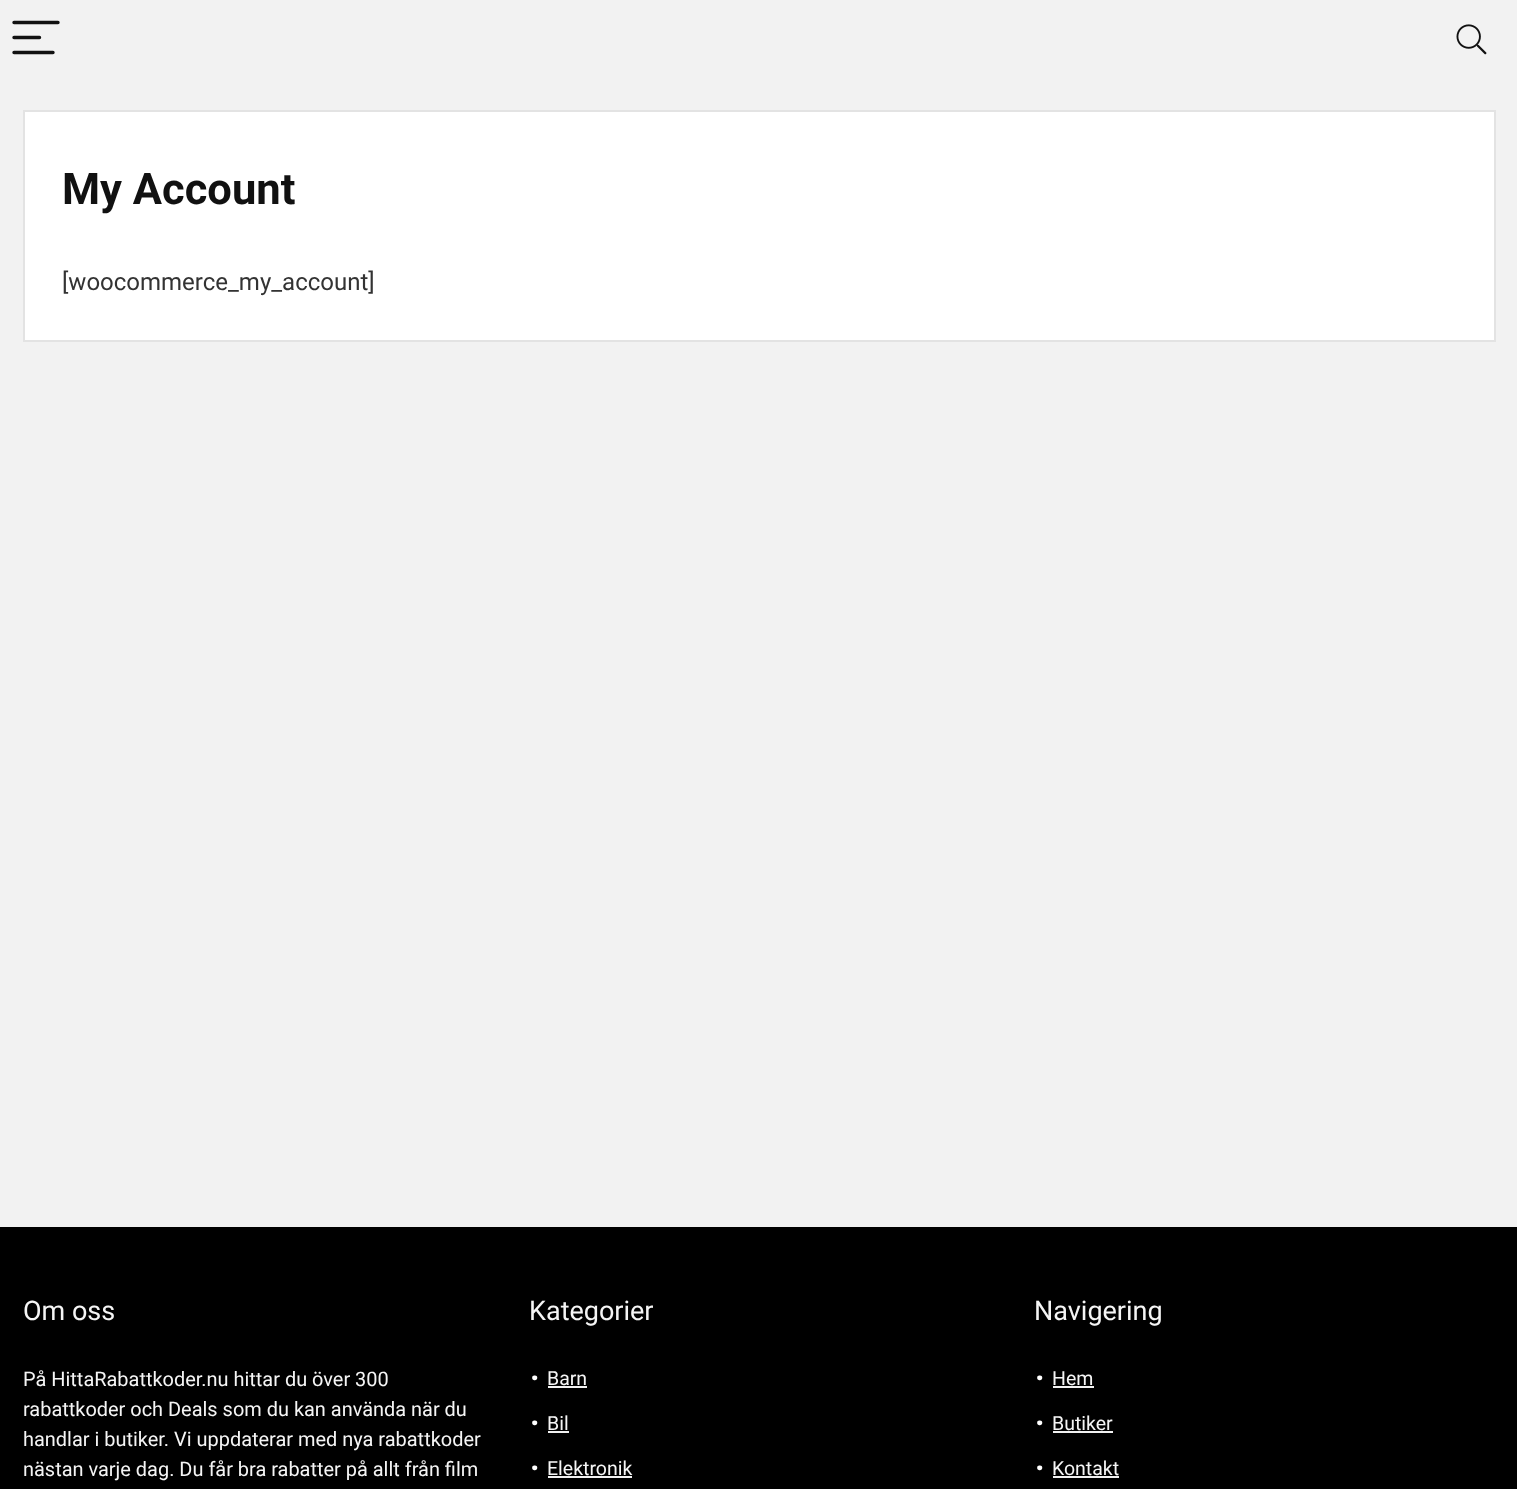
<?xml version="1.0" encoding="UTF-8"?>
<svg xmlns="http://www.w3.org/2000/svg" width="1517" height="1489">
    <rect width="100%" height="100%" fill="#F2F2F2"/>
    <path d="M 14 22.5 H 58 M 14 37.5 H 39.5 M 14 52.5 H 53" fill="none" stroke="#111111" stroke-width="3.4" stroke-linecap="round"/>
    <image x="1456" y="24" width="31" height="31" href="img_01.png"/>
    <rect x="24" y="111" width="1471" height="230" fill="#FFFFFF" stroke="#E3E3E3" stroke-width="2"/>
    <text x="62" y="204" font-family="Roboto" font-size="43.5" font-weight="700" fill="#111111">My Account</text>
    <text x="62" y="290" font-family="Roboto" font-size="24" fill="#333333">[woocommerce_my_account]</text>
    <rect x="0" y="1227" width="1517" height="262" fill="#000000"/>
    <text x="23" y="1320" font-family="Roboto" font-size="27" fill="#F5F5F5">Om oss</text>
    <text font-family="Roboto" font-size="19.95" fill="#F5F5F5">
        <tspan x="23" y="1386">På HittaRabattkoder.nu hittar du över 300</tspan>
        <tspan x="23" y="1416">rabattkoder och Deals som du kan använda när du</tspan>
        <tspan x="23" y="1446">handlar i butiker. Vi uppdaterar med nya rabattkoder</tspan>
        <tspan x="23" y="1476">nästan varje dag. Du får bra rabatter på allt från film</tspan>
    </text>
    <text x="529" y="1320" font-family="Roboto" font-size="27" fill="#F5F5F5">Kategorier</text>
    <text x="529" y="1380" font-family="Roboto" font-size="45" fill="#FFFFFF">.</text>
    <text x="547" y="1385" font-family="Roboto" font-size="19.5" fill="#F5F5F5">Barn</text>
    <rect x="548" y="1386" width="39" height="2" fill="#F1F1F1"/>
    <text x="529" y="1425" font-family="Roboto" font-size="45" fill="#FFFFFF">.</text>
    <text x="547" y="1430" font-family="Roboto" font-size="19.5" fill="#F5F5F5">Bil</text>
    <rect x="548" y="1431" width="21" height="2" fill="#F1F1F1"/>
    <text x="529" y="1470" font-family="Roboto" font-size="45" fill="#FFFFFF">.</text>
    <text x="547" y="1475" font-family="Roboto" font-size="19.5" fill="#F5F5F5">Elektronik</text>
    <rect x="548" y="1476" width="84" height="2" fill="#F1F1F1"/>
    <text x="1034" y="1320" font-family="Roboto" font-size="27" fill="#F5F5F5">Navigering</text>
    <text x="1034" y="1380" font-family="Roboto" font-size="45" fill="#FFFFFF">.</text>
    <text x="1052" y="1385" font-family="Roboto" font-size="19.5" fill="#F5F5F5">Hem</text>
    <rect x="1053" y="1386" width="41" height="2" fill="#F1F1F1"/>
    <text x="1034" y="1425" font-family="Roboto" font-size="45" fill="#FFFFFF">.</text>
    <text x="1052" y="1430" font-family="Roboto" font-size="19.5" fill="#F5F5F5">Butiker</text>
    <rect x="1053" y="1431" width="60" height="2" fill="#F1F1F1"/>
    <text x="1034" y="1470" font-family="Roboto" font-size="45" fill="#FFFFFF">.</text>
    <text x="1052" y="1475" font-family="Roboto" font-size="19.5" fill="#F5F5F5">Kontakt</text>
    <rect x="1053" y="1476" width="66" height="2" fill="#F1F1F1"/>
</svg>
